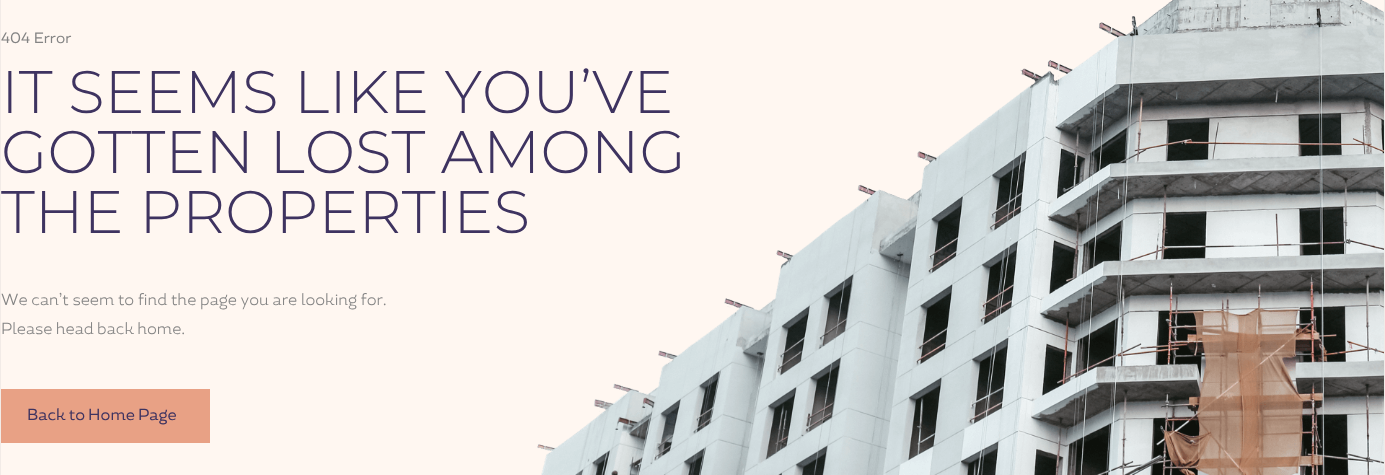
<?xml version="1.0" encoding="UTF-8"?>
<svg xmlns="http://www.w3.org/2000/svg" width="1385" height="475">
    <style>*{font-kerning:none!important;font-variant-ligatures:none!important}</style>
    <rect width="100%" height="100%" fill="#FFF7F1"/>
    <image x="537" y="0" width="847" height="475" href="img_01.png"/>
    <rect x="1384" y="0" width="1" height="475" fill="#F2EBE7"/>
    <rect x="0" y="0" width="1" height="475" fill="#F2EBE7"/>
    <text x="1" y="43" font-family="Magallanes" font-size="15" fill="#848484">404 Error</text>
    <text font-family="Montserrat" font-size="60" font-weight="300" fill="#3E3360">
        <tspan x="1" y="113">IT SEEMS LIKE YOU’VE</tspan>
        <tspan x="1" y="173">GOTTEN LOST AMONG</tspan>
        <tspan x="1" y="233">THE PROPERTIES</tspan>
    </text>
    <text font-family="Magallanes" font-size="16" font-weight="300" fill="#848484">
        <tspan x="1" y="305" word-spacing="-0.5">We can’t seem to find the page you are looking for.</tspan>
        <tspan x="1" y="334" word-spacing="-1">Please head back home.</tspan>
    </text>
    <rect x="1" y="389" width="209" height="54" fill="#E8A185"/>
    <text x="27" y="420" word-spacing="-1" font-family="Magallanes" font-size="16" fill="#3E3360">Back to Home Page</text>
</svg>
